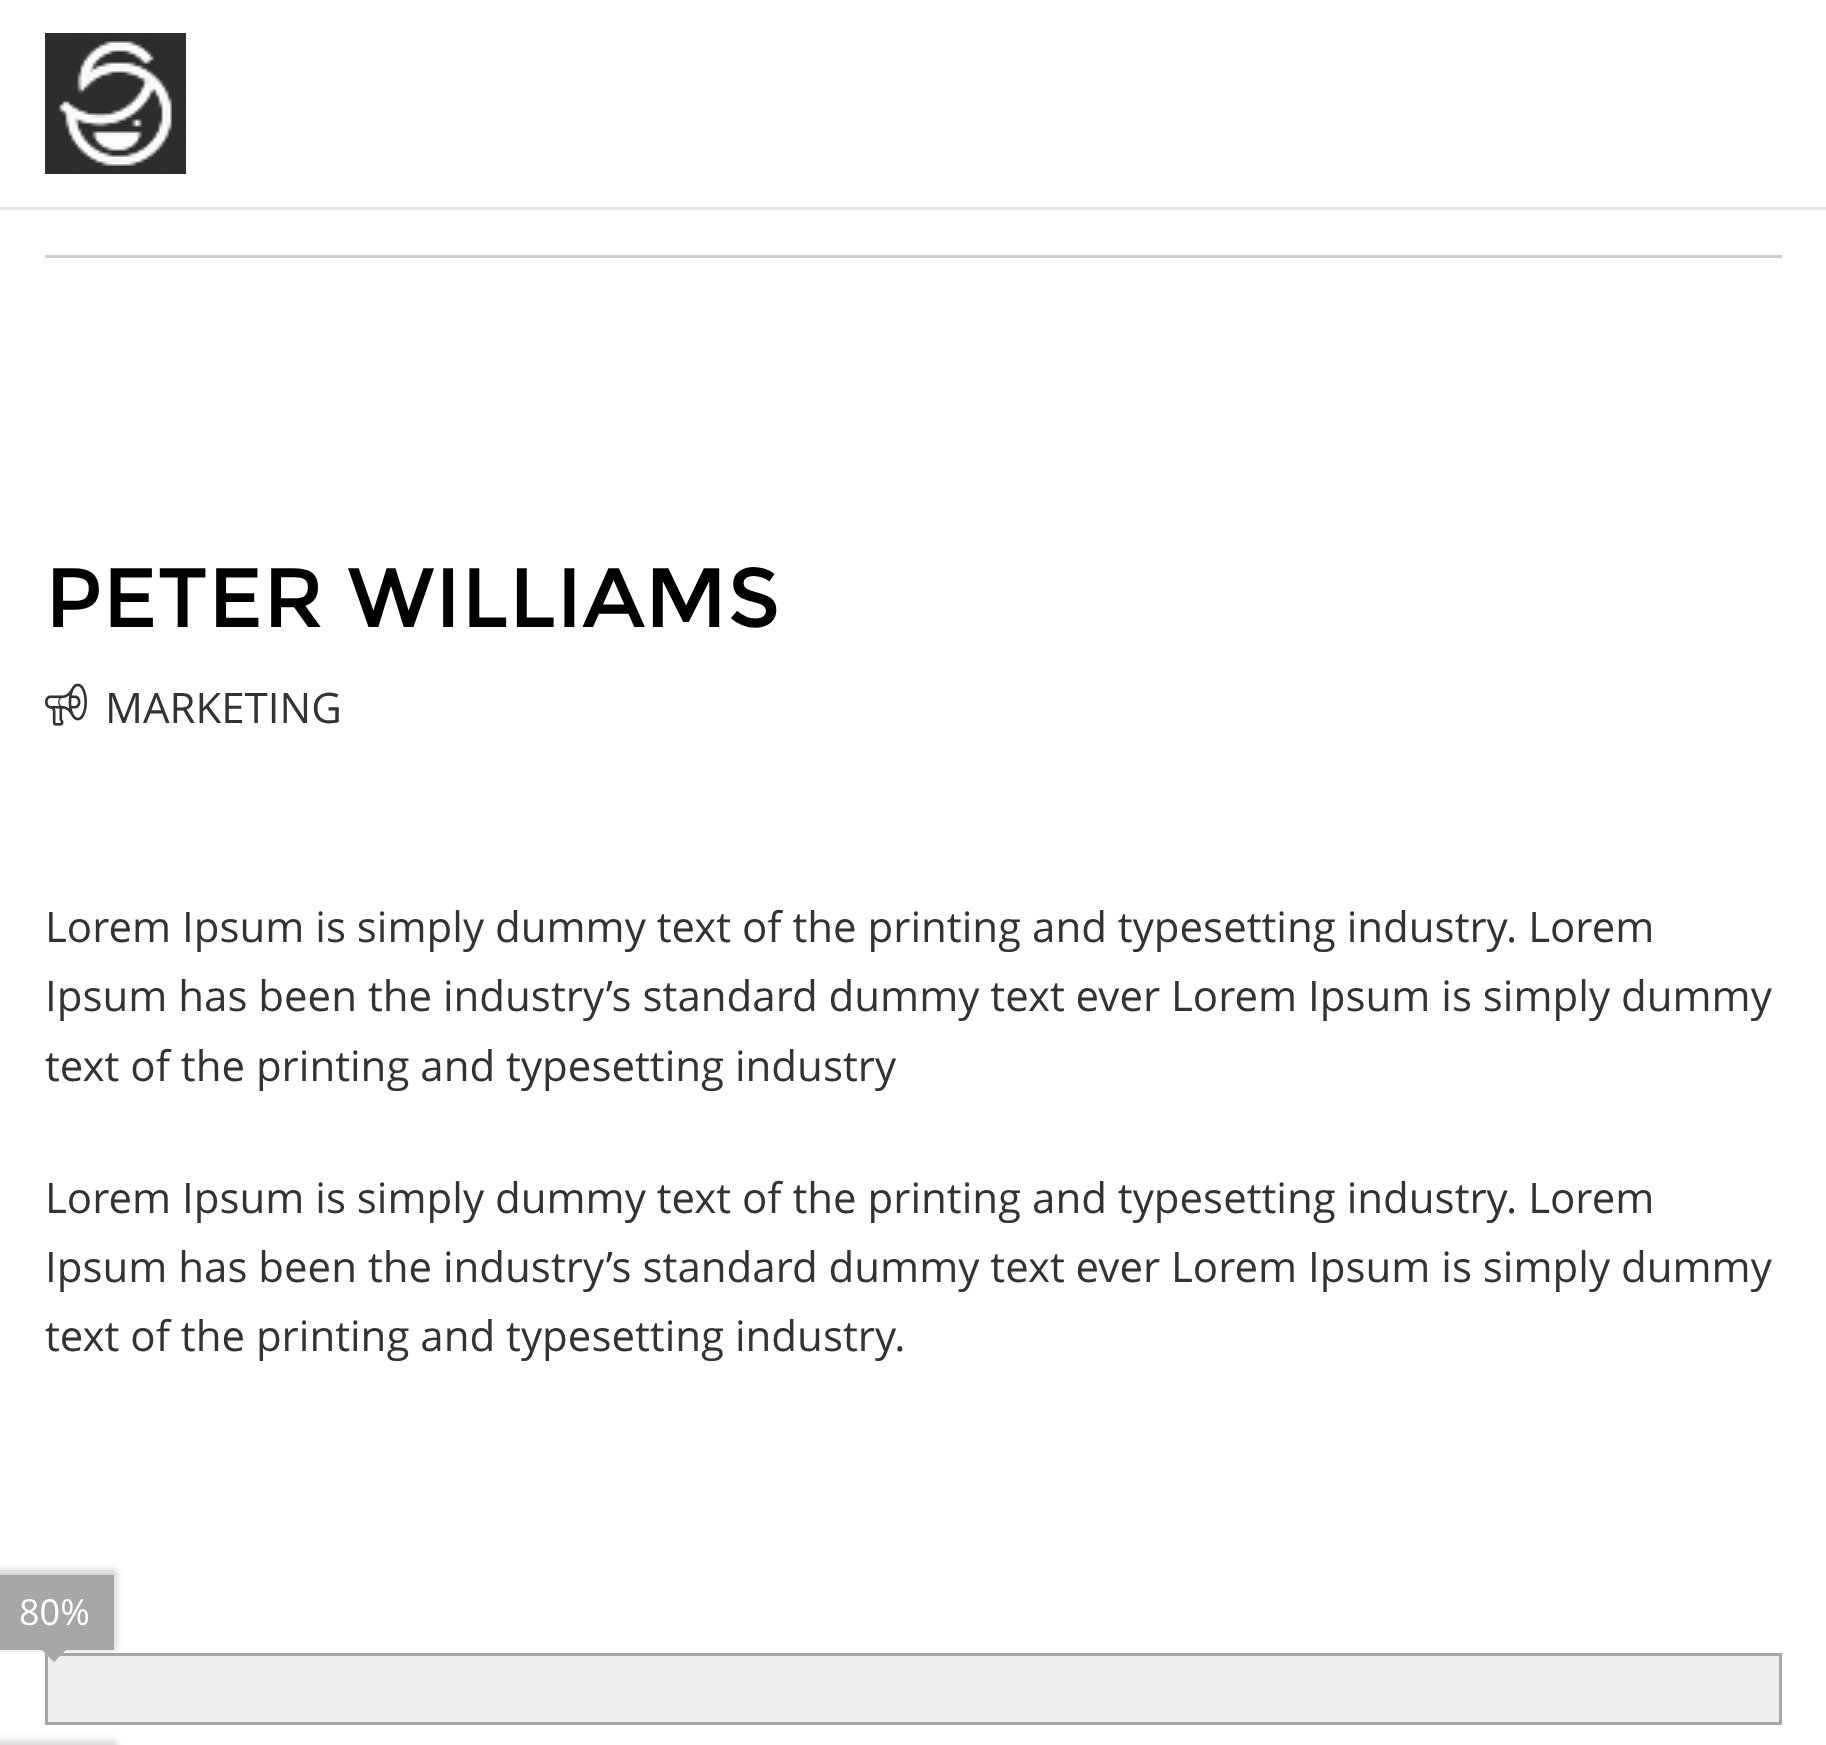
<?xml version="1.0" encoding="UTF-8"?>
<svg xmlns="http://www.w3.org/2000/svg" width="1826" height="1745">
    <defs>
        <filter id="blur1" x="-50%" y="-200%" width="200%" height="500%"><feGaussianBlur stdDeviation="3"/></filter>
    </defs>
    <rect width="100%" height="100%" fill="#FFFFFF"/>
    <rect x="0" y="207" width="1826" height="3" fill="#E6E6E6"/>
    <image x="45" y="33" width="141" height="141" href="img_01.png"/>
    <rect x="45" y="255" width="1737" height="3" fill="#D0D0D0"/>
    <text x="45" y="627" font-family="Montserrat" font-size="84" fill="#000000">PETER WILLIAMS</text>
    <image x="45" y="683" width="42" height="43" href="img_02.png"/>
    <text x="105" y="723" font-family="Open Sans" font-size="42" fill="#333333">MARKETING</text>
    <text font-family="Open Sans" font-size="42" fill="#333333">
        <tspan x="45" y="942">Lorem Ipsum is simply dummy text of the printing and typesetting industry. Lorem</tspan>
        <tspan x="45" y="1011">Ipsum has been the industry’s standard dummy text ever Lorem Ipsum is simply dummy</tspan>
        <tspan x="45" y="1081">text of the printing and typesetting industry</tspan>
    </text>
    <text font-family="Open Sans" font-size="42" fill="#333333">
        <tspan x="45" y="1213">Lorem Ipsum is simply dummy text of the printing and typesetting industry. Lorem</tspan>
        <tspan x="45" y="1282">Ipsum has been the industry’s standard dummy text ever Lorem Ipsum is simply dummy</tspan>
        <tspan x="45" y="1351">text of the printing and typesetting industry.</tspan>
    </text>
    <rect x="46.5" y="1654.5" width="1734" height="69" fill="none" stroke="#A7A7A7" stroke-width="3"/>
    <rect x="48" y="1656" width="1731" height="66" fill="#EEEEEE"/>
    <rect x="-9" y="1569" width="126" height="81" fill="#000000" fill-opacity="0.15" filter="url(#blur1)"/>
    <rect x="0" y="1575" width="114" height="75" fill="#A7A7A7"/>
    <text x="19" y="1625" font-family="Open Sans" font-size="36" fill="#FFFFFF">80%</text>
    <path d="M 42 1650 H 66 L 54 1662 Z" fill="#A7A7A7"/>
    <rect x="-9" y="1740" width="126" height="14" fill="#000000" fill-opacity="0.15" filter="url(#blur1)"/>
</svg>
